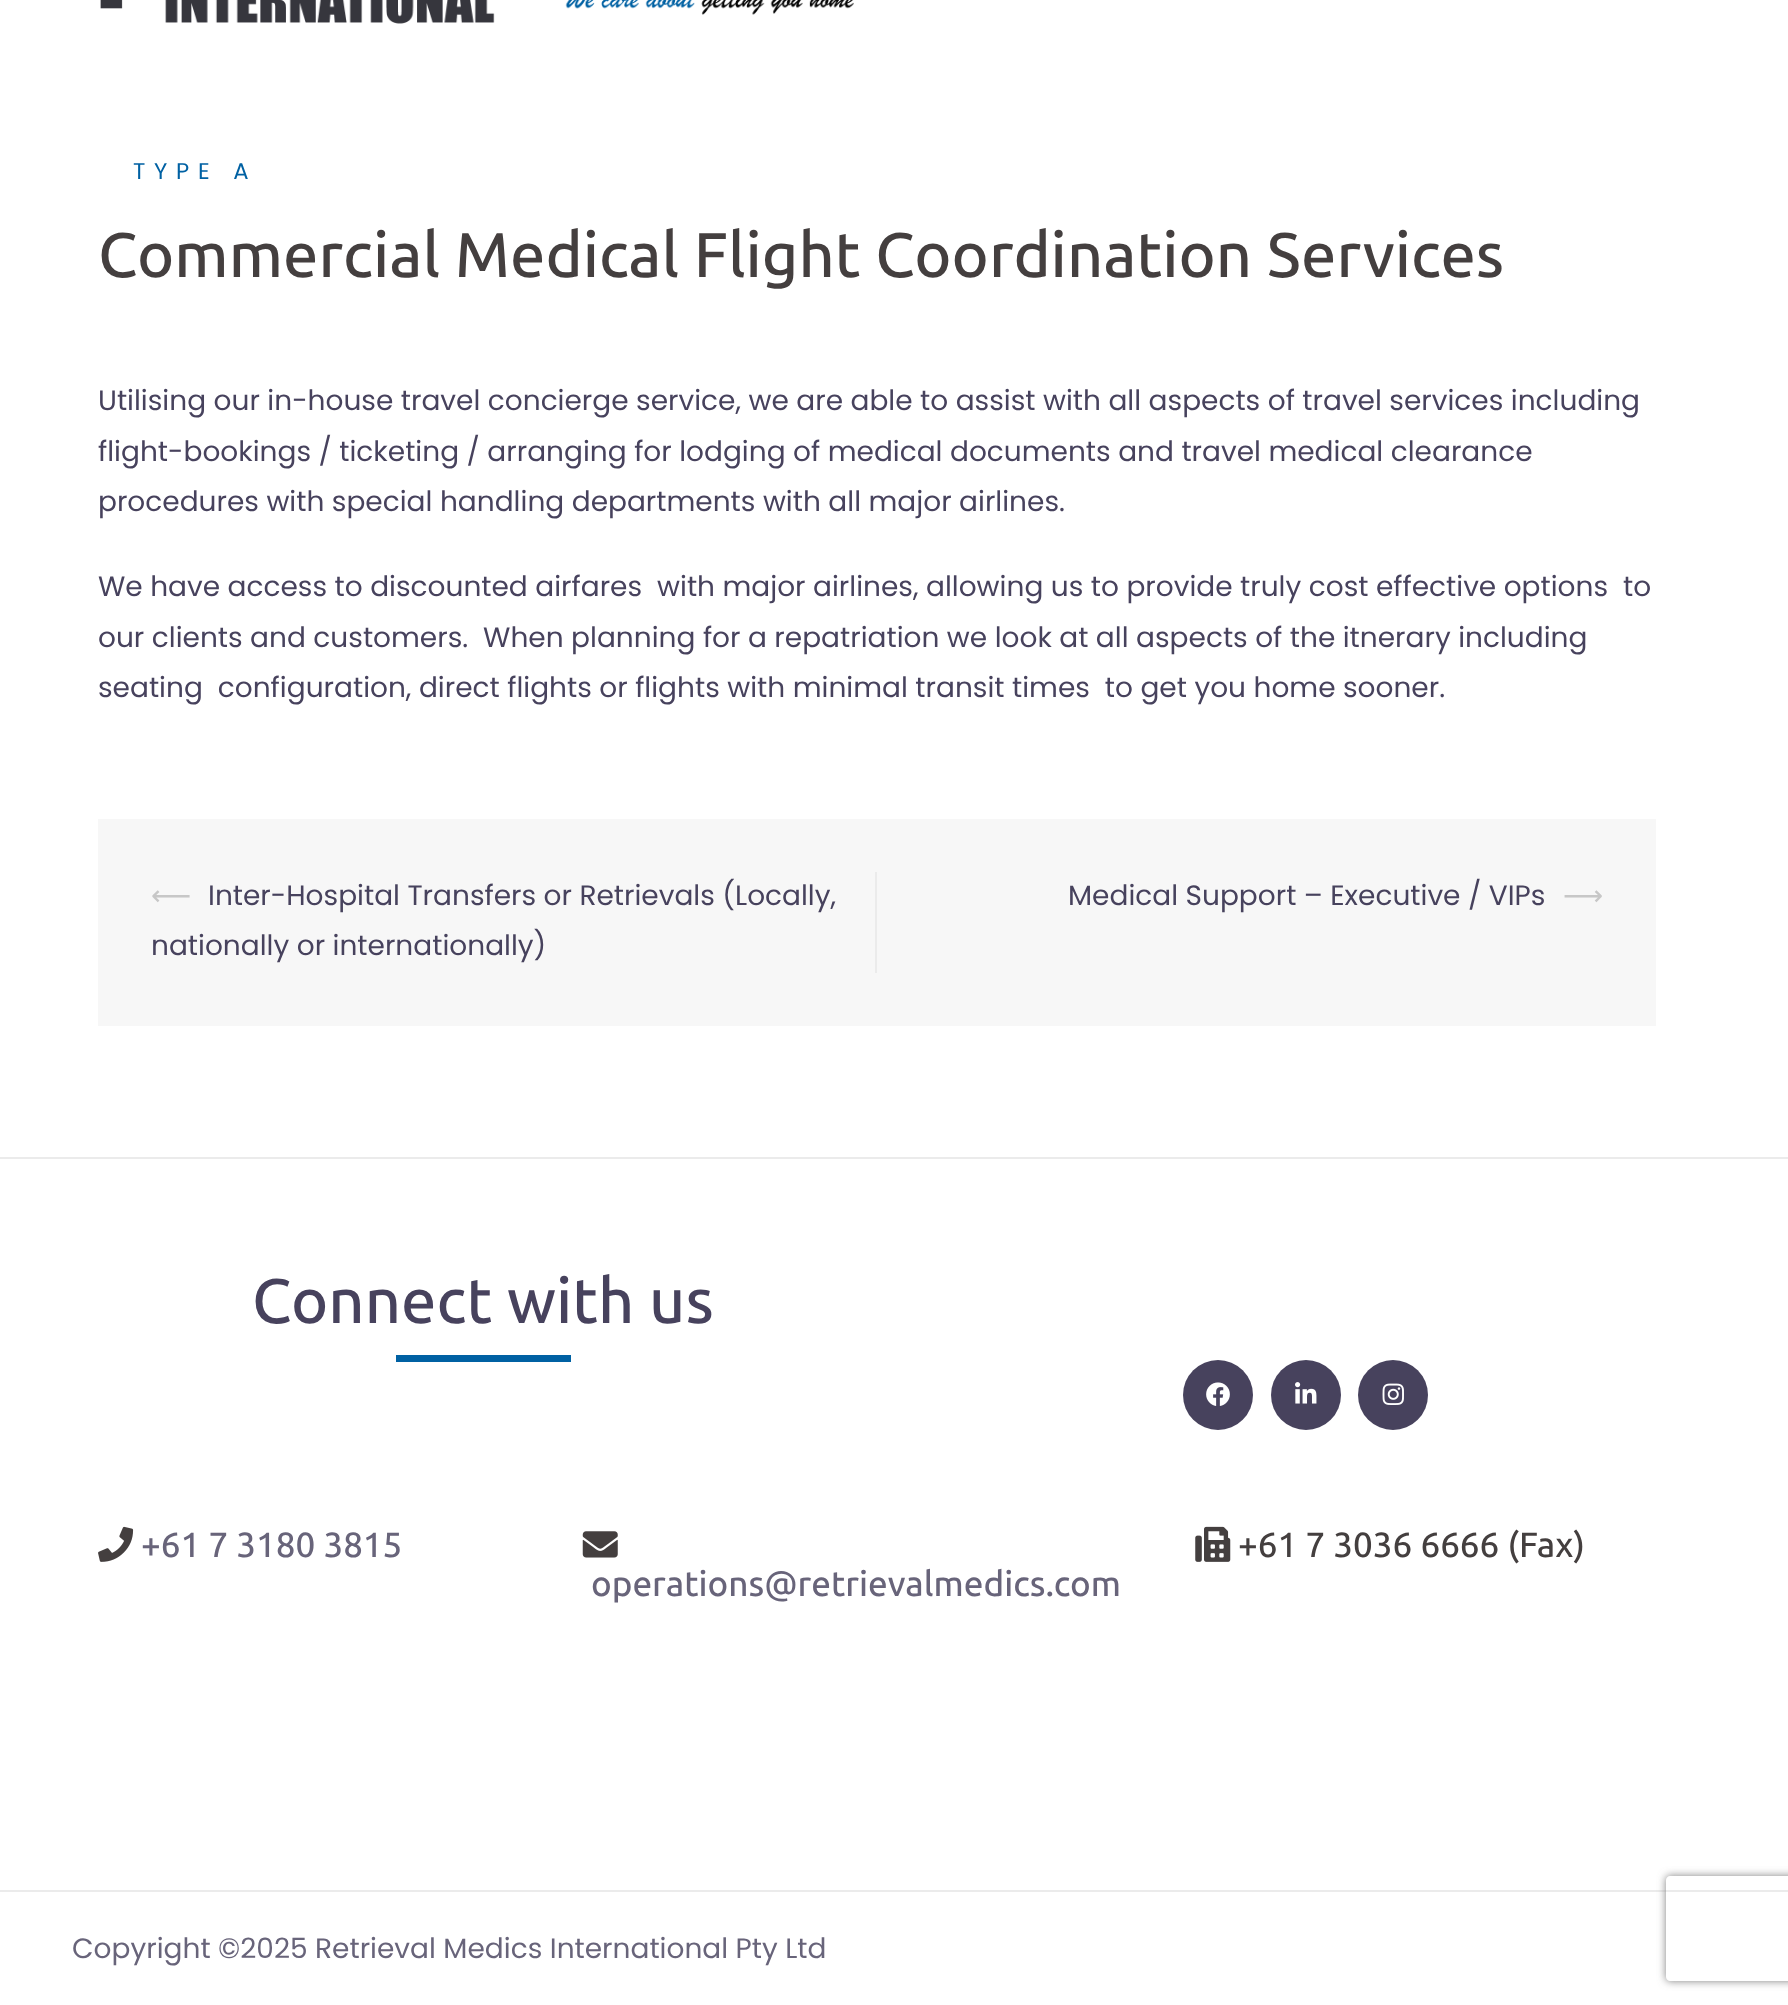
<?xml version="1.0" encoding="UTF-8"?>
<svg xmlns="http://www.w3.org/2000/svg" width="1788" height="2005">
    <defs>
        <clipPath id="clip1"><path d="M 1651 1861 H 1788 V 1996 H 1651 Z M 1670 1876 H 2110 C 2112 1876 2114 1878 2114 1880 V 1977 C 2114 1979 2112 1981 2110 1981 H 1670 C 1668 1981 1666 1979 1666 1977 V 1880 C 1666 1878 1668 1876 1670 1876 Z" clip-rule="evenodd"/></clipPath>
        <filter id="blur1" x="-50%" y="-200%" width="200%" height="500%"><feGaussianBlur stdDeviation="4.5"/></filter>
    </defs>
    <rect width="100%" height="100%" fill="#FFFFFF"/>
    <image x="100" y="0" width="754" height="24" href="img_01.png"/>
    <text x="133" y="179" font-family="Poppins" font-size="22.75" letter-spacing="8.75" fill="#0061A3">TYPE A</text>
    <text x="98" y="277" font-family="Ubuntu" font-size="63" font-weight="500" fill="#443F3F">Commercial Medical Flight Coordination Services</text>
    <text font-family="Poppins" font-size="28" fill="#47425D">
        <tspan x="98" y="410">Utilising our in-house travel concierge service, we are able to assist with all aspects of travel services including</tspan>
        <tspan x="98" y="461">flight-bookings / ticketing / arranging for lodging of medical documents and travel medical clearance</tspan>
        <tspan x="98" y="511">procedures with special handling departments with all major airlines.</tspan>
    </text>
    <text font-family="Poppins" font-size="28" fill="#47425D" xml:space="preserve"><tspan x="98" y="596">We have access to discounted airfares  with major airlines, allowing us to provide truly cost effective options  to</tspan><tspan x="98" y="647">our clients and customers.  When planning for a repatriation we look at all aspects of the itnerary including</tspan><tspan x="98" y="697">seating  configuration, direct flights or flights with minimal transit times  to get you home sooner.</tspan></text>
    <rect x="98" y="819" width="1558" height="207" fill="#F7F7F7"/>
    <rect x="875" y="872" width="2" height="101" fill="#EBEBEB"/>
    <text x="151" y="905" font-family="DejaVu Sans" font-size="28" fill="#C7C7C7">⟵</text>
    <text x="208" y="905" font-family="Poppins" font-size="28" fill="#47425D">Inter-Hospital Transfers or Retrievals (Locally,</text>
    <text x="151" y="955" font-family="Poppins" font-size="28" fill="#47425D">nationally or internationally)</text>
    <text x="1068" y="905" font-family="Poppins" font-size="28" fill="#47425D">Medical Support – Executive / VIPs</text>
    <text x="1563" y="905" font-family="DejaVu Sans" font-size="28" fill="#C7C7C7">⟶</text>
    <rect x="0" y="1157" width="1788" height="2" fill="#EBEBEB"/>
    <text x="252" y="1323" font-family="Ubuntu" font-size="63" font-weight="500" fill="#47425D">Connect with us</text>
    <rect x="396" y="1355" width="175" height="7" fill="#0061A3"/>
    <circle cx="1218" cy="1395" r="35" fill="#47425D"/>
    <image x="1206" y="1382" width="24" height="24" href="img_02.png"/>
    <circle cx="1306" cy="1395" r="35" fill="#47425D"/>
    <image x="1295" y="1382" width="22" height="22" href="img_03.png"/>
    <circle cx="1393" cy="1395" r="35" fill="#47425D"/>
    <image x="1382" y="1383" width="22" height="22" href="img_04.png"/>
    <image x="98" y="1526" width="36" height="36" href="img_05.png"/>
    <text x="141" y="1557" font-family="Ubuntu" font-size="35" font-weight="500" fill="#68647A">+61 7 3180 3815</text>
    <image x="1195" y="1526" width="36" height="36" href="img_06.png"/>
    <text x="1238" y="1557" font-family="Ubuntu" font-size="35" font-weight="500" fill="#443F3F">+61 7 3036 6666 (Fax)</text>
    <image x="582" y="1531" width="36" height="27" href="img_07.png"/>
    <text x="591" y="1596" font-family="Ubuntu" font-size="35" font-weight="500" fill="#68647A">operations@retrievalmedics.com</text>
    <rect x="0" y="1890" width="1788" height="2" fill="#EBEBEB"/>
    <text x="72" y="1958" font-family="Poppins" font-size="28" fill="#68647A">Copyright ©2025 Retrieval Medics International Pty Ltd</text>
    <g clip-path="url(#clip1)">
        <rect x="1666" y="1876" width="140" height="105" rx="4" fill="#808080" filter="url(#blur1)"/>
    </g>
</svg>
